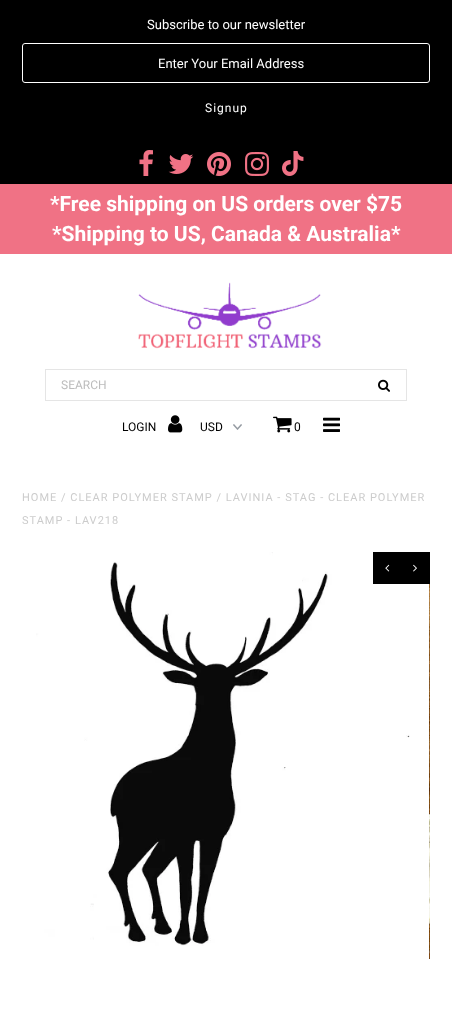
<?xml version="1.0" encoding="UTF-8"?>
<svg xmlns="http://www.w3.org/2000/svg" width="452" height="1013">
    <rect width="100%" height="100%" fill="#FFFFFF"/>
    <rect x="0" y="0" width="452" height="184" fill="#000000"/>
    <text x="147" y="29" font-family="Roboto" font-size="13" fill="#FFFFFF">Subscribe to our newsletter</text>
    <rect x="22.5" y="43.5" width="407" height="39" rx="2.5" fill="none" stroke="#FFFFFF"/>
    <text x="158" y="68" font-family="Roboto" font-size="13" fill="#FFFFFF">Enter Your Email Address</text>
    <text x="205" y="112" font-family="Roboto" font-size="12" letter-spacing="1" fill="#FFFFFF">Signup</text>
    <image x="139" y="150" width="14" height="26" href="img_01.png"/>
    <image x="168" y="154" width="26" height="20" href="img_02.png"/>
    <image x="207" y="152" width="24" height="24" href="img_03.png"/>
    <image x="245" y="152" width="24" height="24" href="img_04.png"/>
    <image x="282" y="151" width="22" height="25" href="img_05.png"/>
    <rect x="0" y="184" width="452" height="70" fill="#F07285"/>
    <text x="50" y="211" font-family="Roboto" font-size="21" font-weight="700" fill="#FFFFFF">*Free shipping on US orders over $75</text>
    <text x="52" y="241" font-family="Roboto" font-size="21" font-weight="700" fill="#FFFFFF">*Shipping to US, Canada &amp; Australia*</text>
    <image x="138" y="282" width="184" height="67" href="img_06.png"/>
    <rect x="45.5" y="369.5" width="361" height="31" fill="none" stroke="#E5E5E5"/>
    <text x="61" y="389" font-family="Roboto" font-size="12" fill="#BCBCBC">SEARCH</text>
    <image x="378" y="379" width="12" height="13" href="img_07.png"/>
    <text x="122" y="431" font-family="Roboto" font-size="12" fill="#000000">LOGIN</text>
    <image x="168" y="415" width="15" height="18" href="img_08.png"/>
    <image x="233" y="424" width="9" height="6" href="img_09.png"/>
    <text x="200" y="431" font-family="Roboto" font-size="12" fill="#000000">USD</text>
    <image x="273" y="416" width="19" height="17" href="img_10.png"/>
    <text x="294" y="431" font-family="Roboto" font-size="12" fill="#000000">0</text>
    <image x="323" y="417" width="17" height="15" href="img_11.png"/>
    <text x="22" y="501" font-family="Roboto" font-size="11" letter-spacing="1" fill="#CCCCCC">HOME / CLEAR POLYMER STAMP / LAVINIA - STAG - CLEAR POLYMER</text>
    <text x="22" y="524" font-family="Roboto" font-size="11" letter-spacing="1" fill="#CCCCCC">STAMP - LAV218</text>
    <image x="36" y="552" width="374" height="394" href="img_12.png"/>
    <image x="429" y="584" width="1" height="375" href="img_13.png"/>
    <rect x="373" y="552" width="57" height="32" fill="#000000"/>
    <image x="385" y="564" width="5" height="8" href="img_14.png"/>
    <image x="413" y="564" width="4" height="8" href="img_15.png"/>
</svg>
